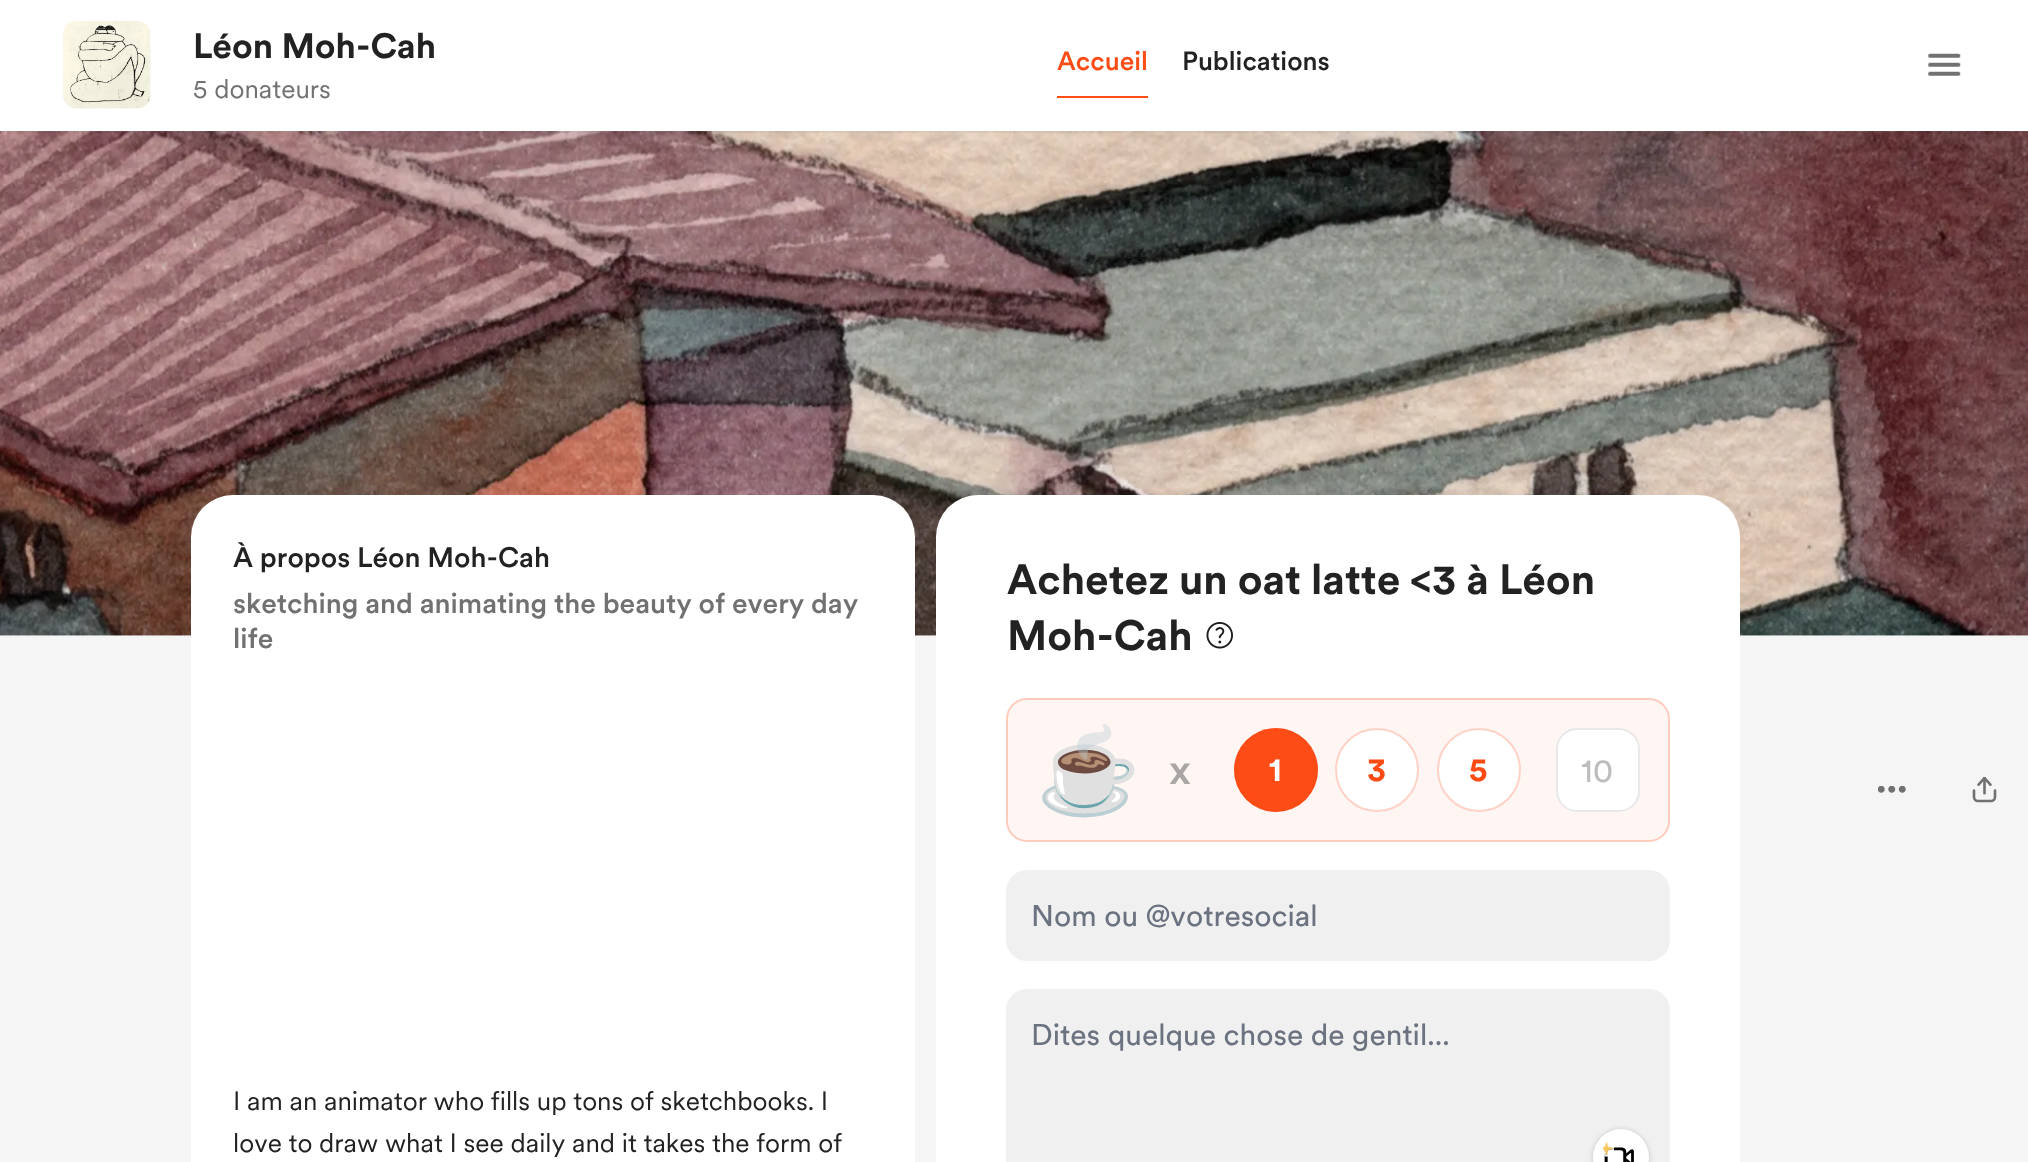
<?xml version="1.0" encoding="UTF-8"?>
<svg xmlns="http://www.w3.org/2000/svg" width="2028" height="1162">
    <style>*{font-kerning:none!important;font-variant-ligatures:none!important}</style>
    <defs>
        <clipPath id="clip1"><rect x="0" y="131" width="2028" height="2"/></clipPath>
        <filter id="blur1" x="-50%" y="-200%" width="200%" height="500%"><feGaussianBlur stdDeviation="1"/></filter>
        <filter id="blur2" x="-50%" y="-200%" width="200%" height="500%"><feGaussianBlur stdDeviation="4.5"/></filter>
        <filter id="blur3" x="-50%" y="-200%" width="200%" height="500%"><feGaussianBlur stdDeviation="2"/></filter>
    </defs>
    <rect width="100%" height="100%" fill="#FFFFFF"/>
    <rect x="0" y="131" width="2028" height="1031" fill="#F5F5F5"/>
    <image x="0" y="131" width="2028" height="505" href="img_04.png"/>
    <image x="0" y="131" width="2028" height="505" href="img_05.png"/>
    <g clip-path="url(#clip1)">
        <rect x="0" y="2" width="2028" height="131" fill="#000000" fill-opacity="0.06" filter="url(#blur1)"/>
    </g>
    <image x="63" y="21" width="88" height="88" href="img_01.png"/>
    <image x="63" y="21" width="88" height="88" href="img_02.png"/>
    <text x="193" y="58" font-family="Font" font-size="35" font-weight="700" fill="#222222">Léon Moh-Cah</text>
    <text x="193" y="98" font-family="'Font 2'" font-size="26.25" fill="#717171">5 donateurs</text>
    <text x="1057" y="70" font-family="Font" font-size="26.25" font-weight="500" fill="#FE4C16">Accueil</text>
    <rect x="1057" y="96" width="91" height="2" fill="#FE4C16"/>
    <text x="1182" y="70" font-family="Font" font-size="26.25" font-weight="500" fill="#222222">Publications</text>
    <image x="1928" y="53" width="33" height="23" href="img_03.png"/>
    <rect x="191" y="495" width="724" height="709" rx="42" fill="#FFFFFF"/>
    <text x="233" y="567" font-family="Font" font-size="28" font-weight="500" fill="#222222">À propos Léon Moh-Cah</text>
    <text font-family="Font" font-size="28" font-weight="500" fill="#717171">
        <tspan x="233" y="613">sketching and animating the beauty of every day</tspan>
        <tspan x="233" y="648">life</tspan>
    </text>
    <text font-family="'Font 2'" font-size="26.25" fill="#222222">
        <tspan x="233" y="1110">I am an animator who fills up tons of sketchbooks. I</tspan>
        <tspan x="233" y="1152">love to draw what I see daily and it takes</tspan>
    </text>
    <text x="712" y="1152" font-family="'Font 2'" font-size="26.25" fill="#222222">the form of</text>
    <rect x="936" y="495" width="804" height="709" rx="42" fill="#FFFFFF"/>
    <text font-family="Font" font-size="42" font-weight="700" fill="#222222">
        <tspan x="1007" y="594">Achetez un oat latte &lt;3 à Léon</tspan>
        <tspan x="1007" y="650">Moh-Cah</tspan>
    </text>
    <image x="1206" y="622" width="27" height="27" href="img_06.png"/>
    <rect x="1006" y="698" width="664" height="144" rx="21" fill="#FFF6F4"/>
    <rect x="1007" y="699" width="662" height="142" rx="20" fill="none" stroke="#FE4C16" stroke-opacity="0.25" stroke-width="2"/>
    <text x="1036" y="800" font-family="Noto Color Emoji" font-size="84" fill="#000000">☕</text>
    <text x="1169" y="784" font-family="Font" font-size="42" font-weight="500" fill="#AAA6A5">x</text>
    <circle cx="1276" cy="770" r="42" fill="#FE4C16"/>
    <circle cx="1276" cy="770" r="41" fill="none" stroke="#FE4C16" stroke-opacity="0.25" stroke-width="2"/>
    <text x="1269" y="781" font-family="Font" font-size="33" font-weight="700" fill="#FFFFFF">1</text>
    <circle cx="1377" cy="770" r="42" fill="#FFFFFF"/>
    <circle cx="1377" cy="770" r="41" fill="none" stroke="#FE4C16" stroke-opacity="0.25" stroke-width="2"/>
    <text x="1367" y="781" font-family="Font" font-size="33" font-weight="700" fill="#FE4C16">3</text>
    <circle cx="1479" cy="770" r="42" fill="#FFFFFF"/>
    <circle cx="1479" cy="770" r="41" fill="none" stroke="#FE4C16" stroke-opacity="0.25" stroke-width="2"/>
    <text x="1469" y="781" font-family="Font" font-size="33" font-weight="700" fill="#FE4C16">5</text>
    <rect x="1556" y="728" width="84" height="84" rx="21" fill="#FFFFFF"/>
    <rect x="1557" y="729" width="82" height="82" rx="20" fill="none" stroke="#222222" stroke-opacity="0.1" stroke-width="2"/>
    <text x="1581" y="782" font-family="Font" font-size="33" fill="#BDBDBD">10</text>
    <rect x="1006" y="870" width="664" height="91" rx="21" fill="#F0F0F0"/>
    <text x="1031" y="926" font-family="Font" font-size="29.75" fill="#6B7280">Nom ou @votresocial</text>
    <rect x="1006" y="989" width="664" height="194" rx="21" fill="#F0F0F0"/>
    <text x="1031" y="1045" font-family="Font" font-size="29.75" fill="#6B7280">Dites quelque chose de gentil...</text>
    <rect x="1593" y="1132" width="56" height="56" rx="28" fill="#000000" fill-opacity="0.05" filter="url(#blur2)"/>
    <rect x="1593" y="1129" width="56" height="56" rx="28" fill="#000000" fill-opacity="0.15" filter="url(#blur3)"/>
    <circle cx="1621" cy="1157" r="28" fill="#FFFFFF"/>
    <image x="1604" y="1147" width="30" height="15" href="img_08.png"/>
    <image x="1603" y="1142" width="11" height="15" href="img_07.png"/>
    <image x="1878" y="786" width="28" height="7" href="img_09.png"/>
    <image x="1972" y="777" width="25" height="26" href="img_10.png"/>
</svg>
